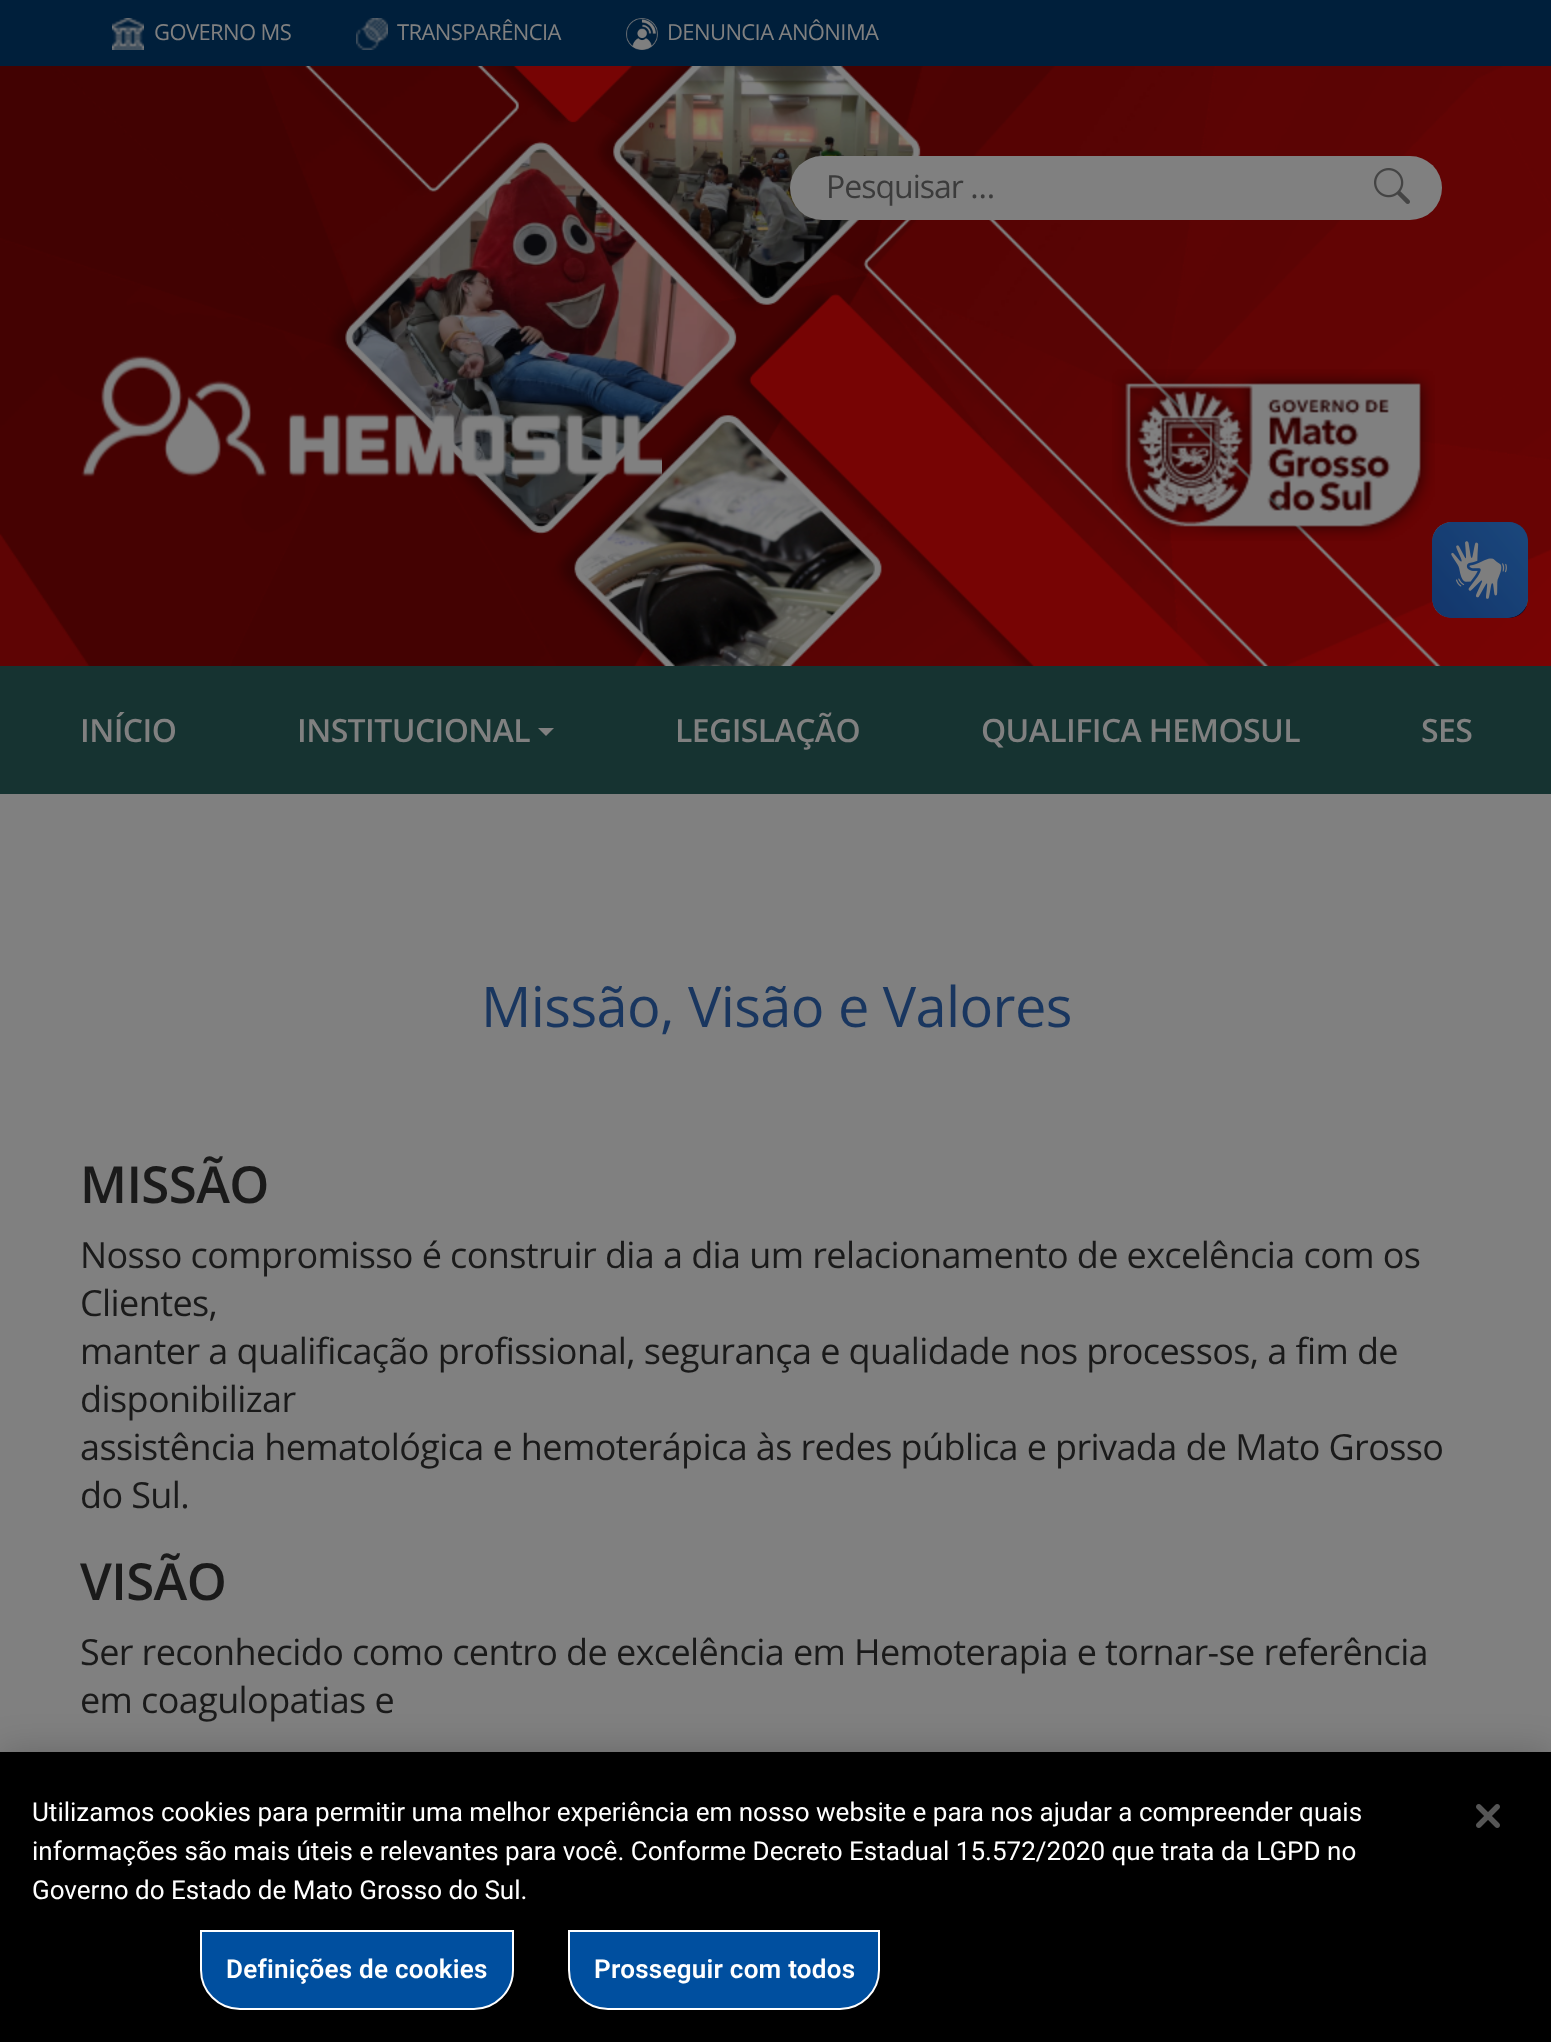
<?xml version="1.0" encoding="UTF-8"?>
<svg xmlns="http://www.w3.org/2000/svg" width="1551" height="2042">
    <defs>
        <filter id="blur1" x="-50%" y="-200%" width="200%" height="500%"><feGaussianBlur stdDeviation="18"/></filter>
    </defs>
    <rect width="100%" height="100%" fill="#808080"/>
    <rect x="0" y="0" width="1551" height="66" fill="#001F3B"/>
    <image x="112" y="18" width="32" height="32" href="img_01.png"/>
    <text x="154" y="40" font-family="Open Sans" font-size="22" letter-spacing="-0.6" fill="#808080">GOVERNO MS</text>
    <image x="356" y="18" width="32" height="32" href="img_02.png"/>
    <text x="397" y="40" font-family="Open Sans" font-size="22" letter-spacing="-0.6" fill="#808080">TRANSPARÊNCIA</text>
    <image x="626" y="18" width="32" height="32" href="img_03.png"/>
    <text x="667" y="40" font-family="Open Sans" font-size="22" letter-spacing="-0.6" fill="#808080">DENUNCIA ANÔNIMA</text>
    <image x="0" y="66" width="1551" height="600" href="img_04.png"/>
    <rect x="790" y="156" width="652" height="64" rx="32" fill="#808080"/>
    <text x="826" y="198" font-family="Open Sans" font-size="32" letter-spacing="-1" fill="#3B3B3B">Pesquisar …</text>
    <image x="1374" y="168" width="36" height="36" href="img_05.png"/>
    <image x="1112" y="369" width="323" height="172" href="img_06.png"/>
    <image x="81" y="355" width="581" height="122" href="img_07.png"/>
    <image x="1432" y="522" width="96" height="96" href="img_08.png"/>
    <image x="1432" y="522" width="96" height="96" href="img_09.png"/>
    <rect x="0" y="666" width="1551" height="128" fill="#163331"/>
    <text x="80" y="742" font-family="Open Sans" font-size="32" font-weight="600" letter-spacing="-0.6" fill="#808080">INÍCIO</text>
    <text x="297" y="742" font-family="Open Sans" font-size="32" font-weight="600" letter-spacing="-0.6" fill="#808080">INSTITUCIONAL</text>
    <path d="M 538 728 H 554 L 546 736 Z" fill="#808080"/>
    <text x="675" y="742" font-family="Open Sans" font-size="32" font-weight="600" letter-spacing="-0.6" fill="#808080">LEGISLAÇÃO</text>
    <text x="981" y="742" font-family="Open Sans" font-size="32" font-weight="600" letter-spacing="-0.6" fill="#808080">QUALIFICA HEMOSUL</text>
    <text x="1421" y="742" font-family="Open Sans" font-size="32" font-weight="600" letter-spacing="-0.6" fill="#808080">SES</text>
    <text x="481" y="1027" font-family="Open Sans" font-size="56" letter-spacing="-0.6" fill="#19365F">Missão, Visão e Valores</text>
    <text x="80" y="1203" font-family="Open Sans" font-size="51" font-weight="600" letter-spacing="-0.6" fill="#1A1A1A">MISSÃO</text>
    <text font-family="Open Sans" font-size="36" letter-spacing="-0.6" fill="#1A1A1A">
        <tspan x="80" y="1268">Nosso compromisso é construir dia a dia um relacionamento de excelência com os</tspan>
        <tspan x="80" y="1316">Clientes,</tspan>
        <tspan x="80" y="1364">manter a qualificação profissional, segurança e qualidade nos processos, a fim de</tspan>
        <tspan x="80" y="1412">disponibilizar</tspan>
        <tspan x="80" y="1460">assistência hematológica e hemoterápica às redes pública e privada de Mato Grosso</tspan>
        <tspan x="80" y="1508">do Sul.</tspan>
    </text>
    <text x="80" y="1600" font-family="Open Sans" font-size="51" font-weight="600" letter-spacing="-0.6" fill="#1A1A1A">VISÃO</text>
    <text font-family="Open Sans" font-size="36" letter-spacing="-0.6" fill="#1A1A1A">
        <tspan x="80" y="1665">Ser reconhecido como centro de excelência em Hemoterapia e tornar-se referência</tspan>
        <tspan x="80" y="1713">em coagulopatias e</tspan>
    </text>
    <rect x="0" y="1752" width="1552" height="290" fill="#000000" fill-opacity="0.2" filter="url(#blur1)"/>
    <rect x="0" y="1752" width="1551" height="290" fill="#000000"/>
    <text font-family="Roboto" font-size="26.02" fill="#FFFFFF">
        <tspan x="32" y="1821">Utilizamos cookies para permitir uma melhor experiência em nosso website e para nos ajudar a compreender quais</tspan>
        <tspan x="32" y="1860">informações são mais úteis e relevantes para você. Conforme Decreto Estadual 15.572/2020 que trata da LGPD no</tspan>
        <tspan x="32" y="1899">Governo do Estado de Mato Grosso do Sul.</tspan>
    </text>
    <path d="M 201 1931 H 513 V 1970 C 513 1991.5 495.5 2009 474 2009 H 240 C 218.5 2009 201 1991.5 201 1970 Z" fill="#004F9F" stroke="#FFFFFF" stroke-width="2"/>
    <text x="226" y="1978" font-family="Roboto" font-size="26.02" font-weight="600" letter-spacing="0.25" fill="#FFFFFF">Definições de cookies</text>
    <path d="M 569 1931 H 879 V 1970 C 879 1991.5 861.5 2009 840 2009 H 608 C 586.5 2009 569 1991.5 569 1970 Z" fill="#004F9F" stroke="#FFFFFF" stroke-width="2"/>
    <text x="594" y="1978" font-family="Roboto" font-size="26.02" font-weight="600" letter-spacing="0.25" fill="#FFFFFF">Prosseguir com todos</text>
    <image x="1476" y="1804" width="24" height="24" href="img_10.png"/>
</svg>
